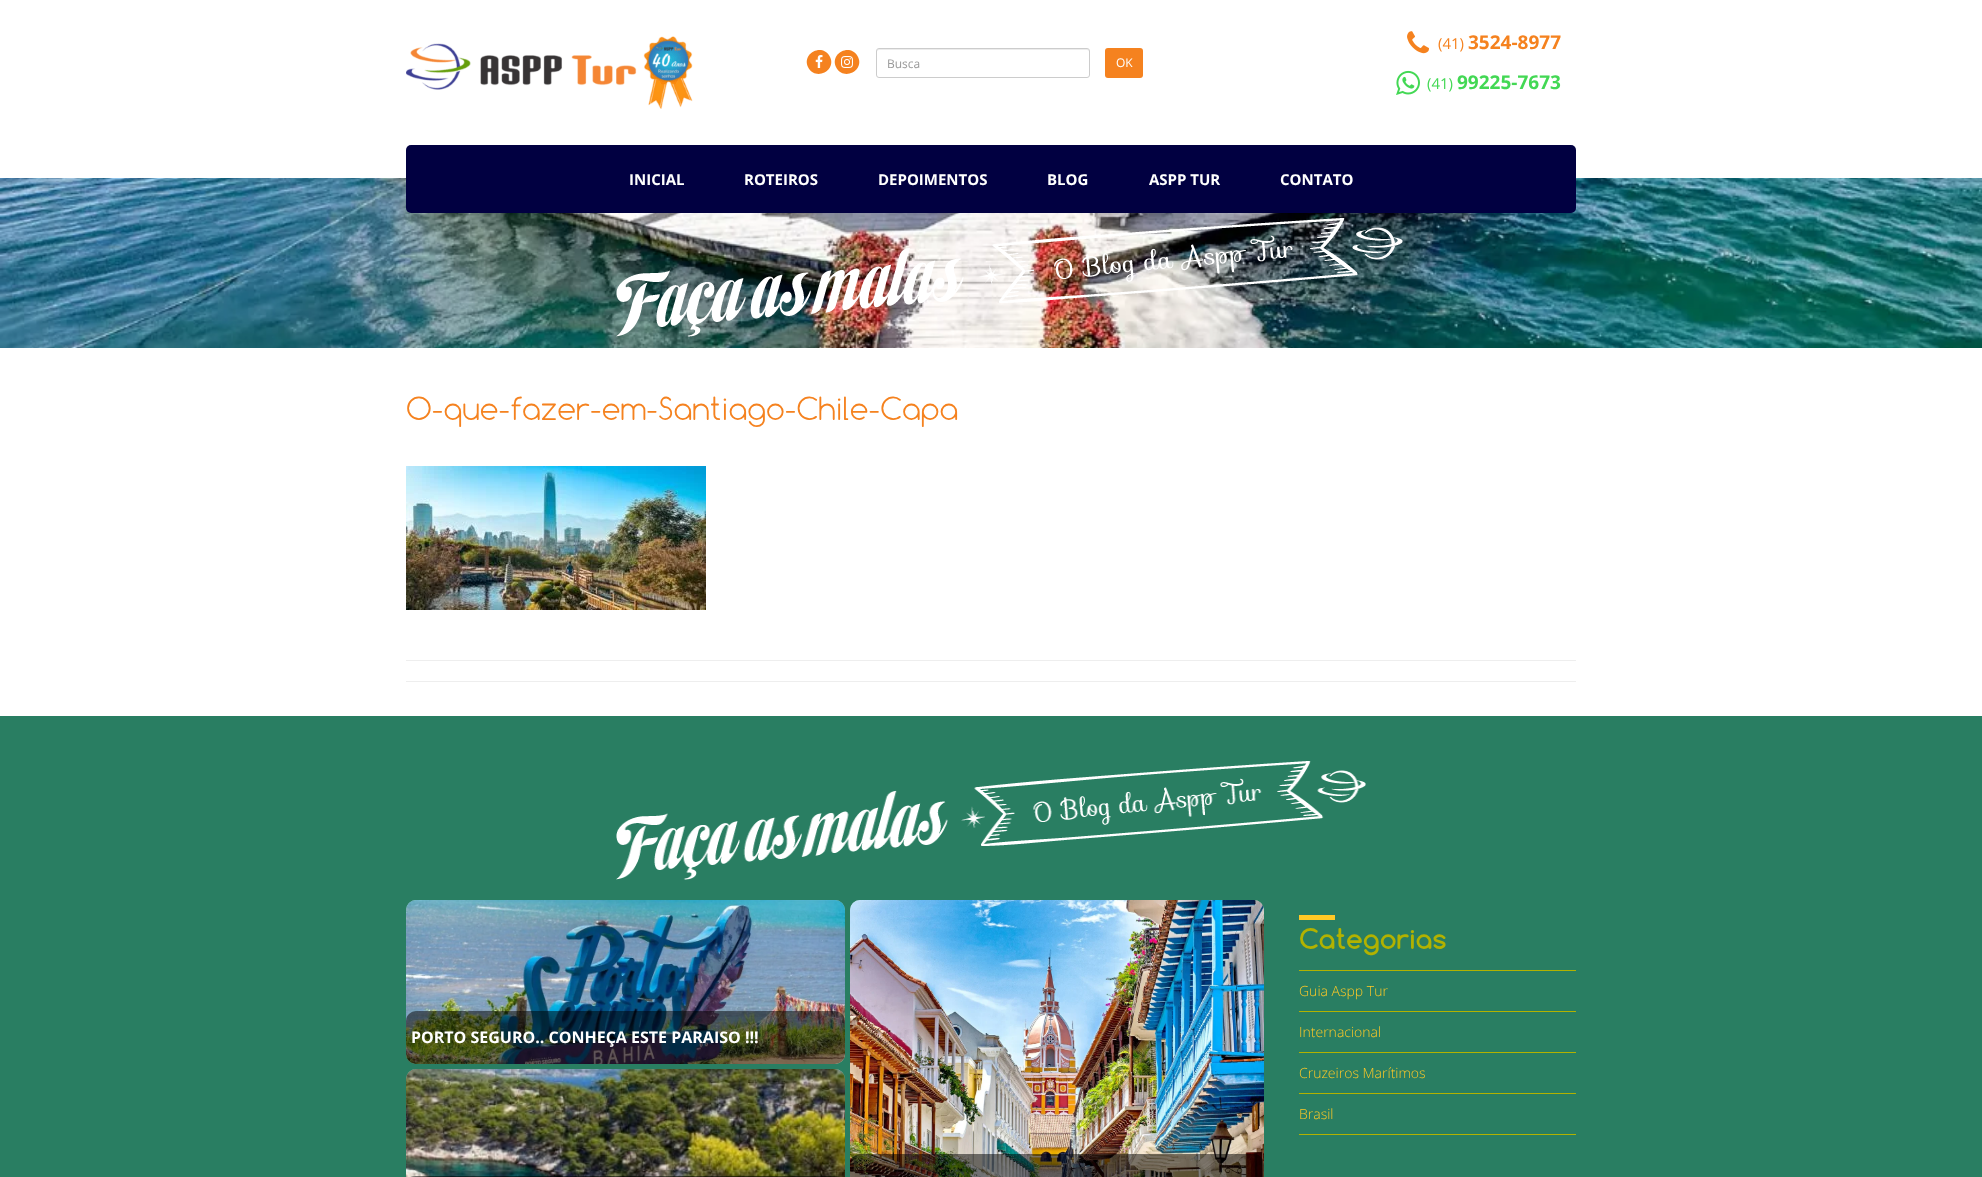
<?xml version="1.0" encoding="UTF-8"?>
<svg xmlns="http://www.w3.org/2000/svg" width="1982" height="1177">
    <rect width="100%" height="100%" fill="#FFFFFF"/>
    <image x="406" y="36" width="287" height="73" href="img_01.png"/>
    <path d="M 829.5 56 C 837.5 69.5 816.5 81.5 808.5 68 C 800.5 54.5 821.5 42.5 829.5 56 Z" fill="#F5821F"/>
    <image x="815" y="55" width="8" height="13" href="img_02.png"/>
    <path d="M 857.5 56 C 865.5 69.5 844.5 81.5 836.5 68 C 828.5 54.5 849.5 42.5 857.5 56 Z" fill="#F5821F"/>
    <image x="841" y="56" width="12" height="12" href="img_03.png"/>
    <path d="M 879 50 H 1087 C 1088 50 1089 51 1089 52 C 1089 51 1089 49 1087 49 H 879 C 877 49 877 51 877 52 C 877 51 878 50 879 50 Z" fill="#ECECEC"/>
    <rect x="876.5" y="48.5" width="213" height="29" rx="2.5" fill="none" stroke="#CCCCCC"/>
    <text x="887" y="68" font-family="Open Sans" font-size="12" fill="#999999">Busca</text>
    <rect x="1105" y="48" width="38" height="30" rx="3" fill="#F5821F"/>
    <text x="1116" y="67" font-family="Open Sans" font-size="12" fill="#FFFFFF">OK</text>
    <image x="1407" y="31" width="22" height="23" href="img_04.png"/>
    <text x="1438" y="49" font-family="Open Sans" font-size="15" fill="#F5821F">(41)</text>
    <text x="1468" y="49" font-family="Open Sans" font-size="19" font-weight="700" fill="#F5821F">3524-8977</text>
    <image x="1396" y="70" width="24" height="25" href="img_05.png"/>
    <text x="1427" y="89" font-family="Open Sans" font-size="15" fill="#43D854">(41)</text>
    <text x="1457" y="89" font-family="Open Sans" font-size="19" font-weight="700" fill="#43D854">99225-7673</text>
    <image x="0" y="178" width="1982" height="170" href="img_06.png"/>
    <rect x="406" y="145" width="1170" height="68" rx="5" fill="#010041"/>
    <text x="629" y="185" font-family="Open Sans" font-size="15" font-weight="700" fill="#FFFFFF">INICIAL</text>
    <text x="744" y="185" font-family="Open Sans" font-size="15" font-weight="700" fill="#FFFFFF">ROTEIROS</text>
    <text x="878" y="185" font-family="Open Sans" font-size="15" font-weight="700" fill="#FFFFFF">DEPOIMENTOS</text>
    <text x="1047" y="185" font-family="Open Sans" font-size="15" font-weight="700" fill="#FFFFFF">BLOG</text>
    <text x="1149" y="185" font-family="Open Sans" font-size="15" font-weight="700" fill="#FFFFFF">ASPP TUR</text>
    <text x="1280" y="185" font-family="Open Sans" font-size="15" font-weight="700" fill="#FFFFFF">CONTATO</text>
    <image x="616" y="218" width="787" height="119" href="img_07.png"/>
    <text x="406" y="420" font-family="Comfortaa" font-size="30" font-weight="300" fill="#F5821F">O-que-fazer-em-Santiago-Chile-Capa</text>
    <image x="406" y="466" width="300" height="144" href="img_08.png"/>
    <rect x="406" y="660" width="1170" height="1" fill="#EEEEEE"/>
    <rect x="406" y="681" width="1170" height="1" fill="#EEEEEE"/>
    <rect x="0" y="716" width="1982" height="461" fill="#297E62"/>
    <image x="616" y="761" width="750" height="119" href="img_09.png"/>
    <rect x="406" y="900" width="439" height="164" rx="10" fill="#94BFB1"/>
    <image x="406" y="900" width="439" height="164" href="img_10.png"/>
    <rect x="406" y="1011" width="439" height="53" rx="10" fill="#000000" fill-opacity="0.5"/>
    <text x="411" y="1043" font-family="Open Sans" font-size="16" font-weight="700" fill="#FFFFFF">PORTO SEGURO.. CONHEÇA ESTE PARAISO !!!</text>
    <rect x="406" y="1069" width="439" height="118" rx="10" fill="#94BFB1"/>
    <image x="406" y="1069" width="439" height="108" href="img_11.png"/>
    <rect x="406" y="1176" width="439" height="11" rx="10" fill="#000000" fill-opacity="0.5"/>
    <rect x="850" y="900" width="414" height="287" rx="10" fill="#94BFB1"/>
    <image x="850" y="900" width="414" height="277" href="img_12.png"/>
    <rect x="850" y="1154" width="414" height="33" rx="10" fill="#000000" fill-opacity="0.5"/>
    <rect x="1299" y="915" width="36" height="5" fill="#FFC926"/>
    <text x="1299" y="949" font-family="Comfortaa" font-size="27" font-weight="700" fill="#B2B200">Categorias</text>
    <rect x="1299" y="970" width="277" height="1" fill="#B2B200"/>
    <rect x="1299" y="1011" width="277" height="1" fill="#B2B200"/>
    <text x="1299" y="996" font-family="Open Sans" font-size="14" font-weight="300" fill="#FFC926">Guia Aspp Tur</text>
    <rect x="1299" y="1052" width="277" height="1" fill="#B2B200"/>
    <text x="1299" y="1037" font-family="Open Sans" font-size="14" font-weight="300" fill="#FFC926">Internacional</text>
    <rect x="1299" y="1093" width="277" height="1" fill="#B2B200"/>
    <text x="1299" y="1078" font-family="Open Sans" font-size="14" font-weight="300" fill="#FFC926">Cruzeiros Marítimos</text>
    <rect x="1299" y="1134" width="277" height="1" fill="#B2B200"/>
    <text x="1299" y="1119" font-family="Open Sans" font-size="14" font-weight="300" fill="#FFC926">Brasil</text>
</svg>
